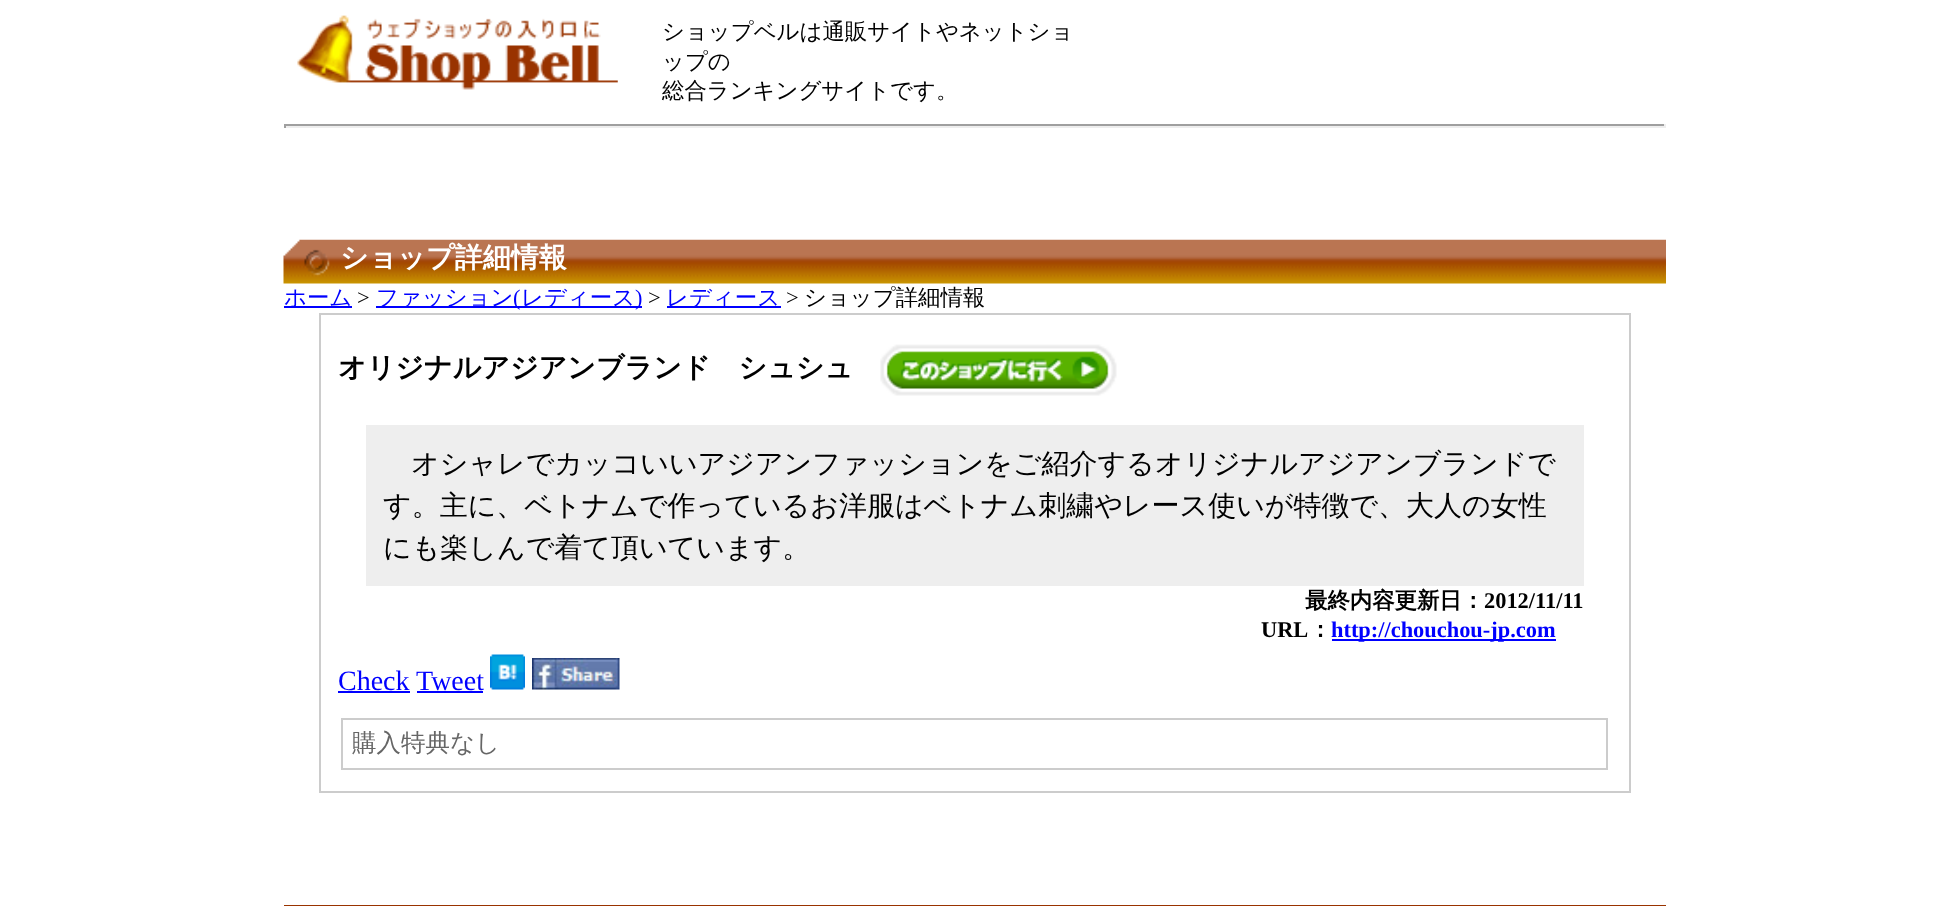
<?xml version="1.0" encoding="UTF-8"?>
<svg xmlns="http://www.w3.org/2000/svg" width="1949" height="906">
    <rect width="100%" height="100%" fill="#FFFFFF"/>
    <image x="297" y="15" width="321" height="75" href="img_01.png"/>
    <text font-family="WenQuanYi Zen Hei" font-size="22.4" font-weight="500" fill="#000000">
        <tspan x="662" y="39">ショップベルは通販サイトやネットショ</tspan>
        <tspan x="662" y="69">ップの</tspan>
        <tspan x="662" y="98">総合ランキングサイトです。</tspan>
    </text>
    <rect x="284" y="124" width="1382" height="2" fill="#9F9F9F"/>
    <rect x="1664" y="124" width="2" height="4" fill="#EEEEEE"/>
    <rect x="284" y="126" width="1382" height="2" fill="#EEEEEE"/>
    <rect x="284" y="124" width="2" height="4" fill="#9F9F9F"/>
    <image x="283" y="239" width="1383" height="45" href="img_02.png"/>
    <text x="340" y="267" font-family="WenQuanYi Zen Hei" font-size="28" font-weight="700" fill="#FFFFFF">ショップ詳細情報</text>
    <rect x="284" y="306" width="68" height="2" fill="#0000FF"/>
    <text x="284" y="305" font-family="WenQuanYi Zen Hei" font-size="22.4" font-weight="500" fill="#0000FF">ホーム</text>
    <text x="357" y="305" font-family="Liberation Serif" font-size="22.4" fill="#000000">&gt;</text>
    <rect x="376" y="306" width="266" height="2" fill="#0000FF"/>
    <text x="376" y="305" font-family="WenQuanYi Zen Hei" font-size="22.4" font-weight="500" fill="#0000FF">ファッション</text>
    <text x="513" y="305" font-family="Liberation Serif" font-size="22.4" fill="#0000FF">(</text>
    <text x="521" y="305" font-family="WenQuanYi Zen Hei" font-size="22.4" font-weight="500" fill="#0000FF">レディース</text>
    <text x="635" y="305" font-family="Liberation Serif" font-size="22.4" fill="#0000FF">)</text>
    <text x="648" y="305" font-family="Liberation Serif" font-size="22.4" fill="#000000">&gt;</text>
    <rect x="667" y="306" width="114" height="2" fill="#0000FF"/>
    <text x="666" y="305" font-family="WenQuanYi Zen Hei" font-size="22.4" font-weight="500" fill="#0000FF">レディース</text>
    <text x="786" y="305" font-family="Liberation Serif" font-size="22.4" fill="#000000">&gt;</text>
    <text x="804" y="305" font-family="WenQuanYi Zen Hei" font-size="22.4" font-weight="500" fill="#000000">ショップ詳細情報</text>
    <rect x="320" y="314" width="1310" height="478" fill="none" stroke="#CCCCCC" stroke-width="2"/>
    <text x="338" y="377" font-family="WenQuanYi Zen Hei" font-size="28" font-weight="700" fill="#000000">オリジナルアジアンブランド　シュシュ</text>
    <image x="880" y="344" width="237" height="52" href="img_03.png"/>
    <rect x="366" y="425" width="1218" height="161" fill="#EEEEEE"/>
    <text x="411" y="473" font-family="WenQuanYi Zen Hei" font-size="28" font-weight="500" fill="#000000">オシャレでカッコいいアジアンファッションをご紹介するオリジナルアジアンブランドで</text>
    <text font-family="WenQuanYi Zen Hei" font-size="28" font-weight="500" fill="#000000">
        <tspan x="383" y="515">す。主に、ベトナムで作っているお洋服はベトナム刺繍やレース使いが特徴で、大人の女性</tspan>
        <tspan x="383" y="557">にも楽しんで着て頂いています。</tspan>
    </text>
    <text x="1305" y="608" font-family="WenQuanYi Zen Hei" font-size="22.4" font-weight="700" fill="#000000">最終内容更新日：</text>
    <text x="1484" y="608" font-family="Liberation Serif" font-size="22.4" font-weight="700" fill="#000000">2012/11/11</text>
    <text x="1261" y="637" font-family="Liberation Serif" font-size="22.4" font-weight="700" fill="#000000">URL</text>
    <text x="1309" y="637" font-family="WenQuanYi Zen Hei" font-size="22.4" font-weight="700" fill="#000000">：</text>
    <rect x="1332" y="639" width="224" height="2" fill="#0000FF"/>
    <text x="1331" y="637" font-family="Liberation Serif" font-size="22.4" font-weight="700" fill="#0000FF">http://chouchou-jp.com</text>
    <text x="338" y="690" font-family="Liberation Serif" font-size="28" fill="#0000FF">Check</text>
    <rect x="338" y="691" width="72" height="2" fill="#0000FF"/>
    <text x="416" y="690" font-family="Liberation Serif" font-size="28" fill="#0000FF">Tweet</text>
    <rect x="417" y="691" width="66" height="2" fill="#0000FF"/>
    <image x="490" y="654" width="35" height="36" href="img_04.png"/>
    <image x="532" y="658" width="88" height="32" href="img_05.png"/>
    <rect x="342" y="719" width="1265" height="50" fill="none" stroke="#CCCCCC" stroke-width="2"/>
    <text x="352" y="751" font-family="WenQuanYi Zen Hei" font-size="24.5" font-weight="500" fill="#666666">購入特典なし</text>
    <rect x="284" y="905" width="1382" height="1" fill="#993300"/>
</svg>
